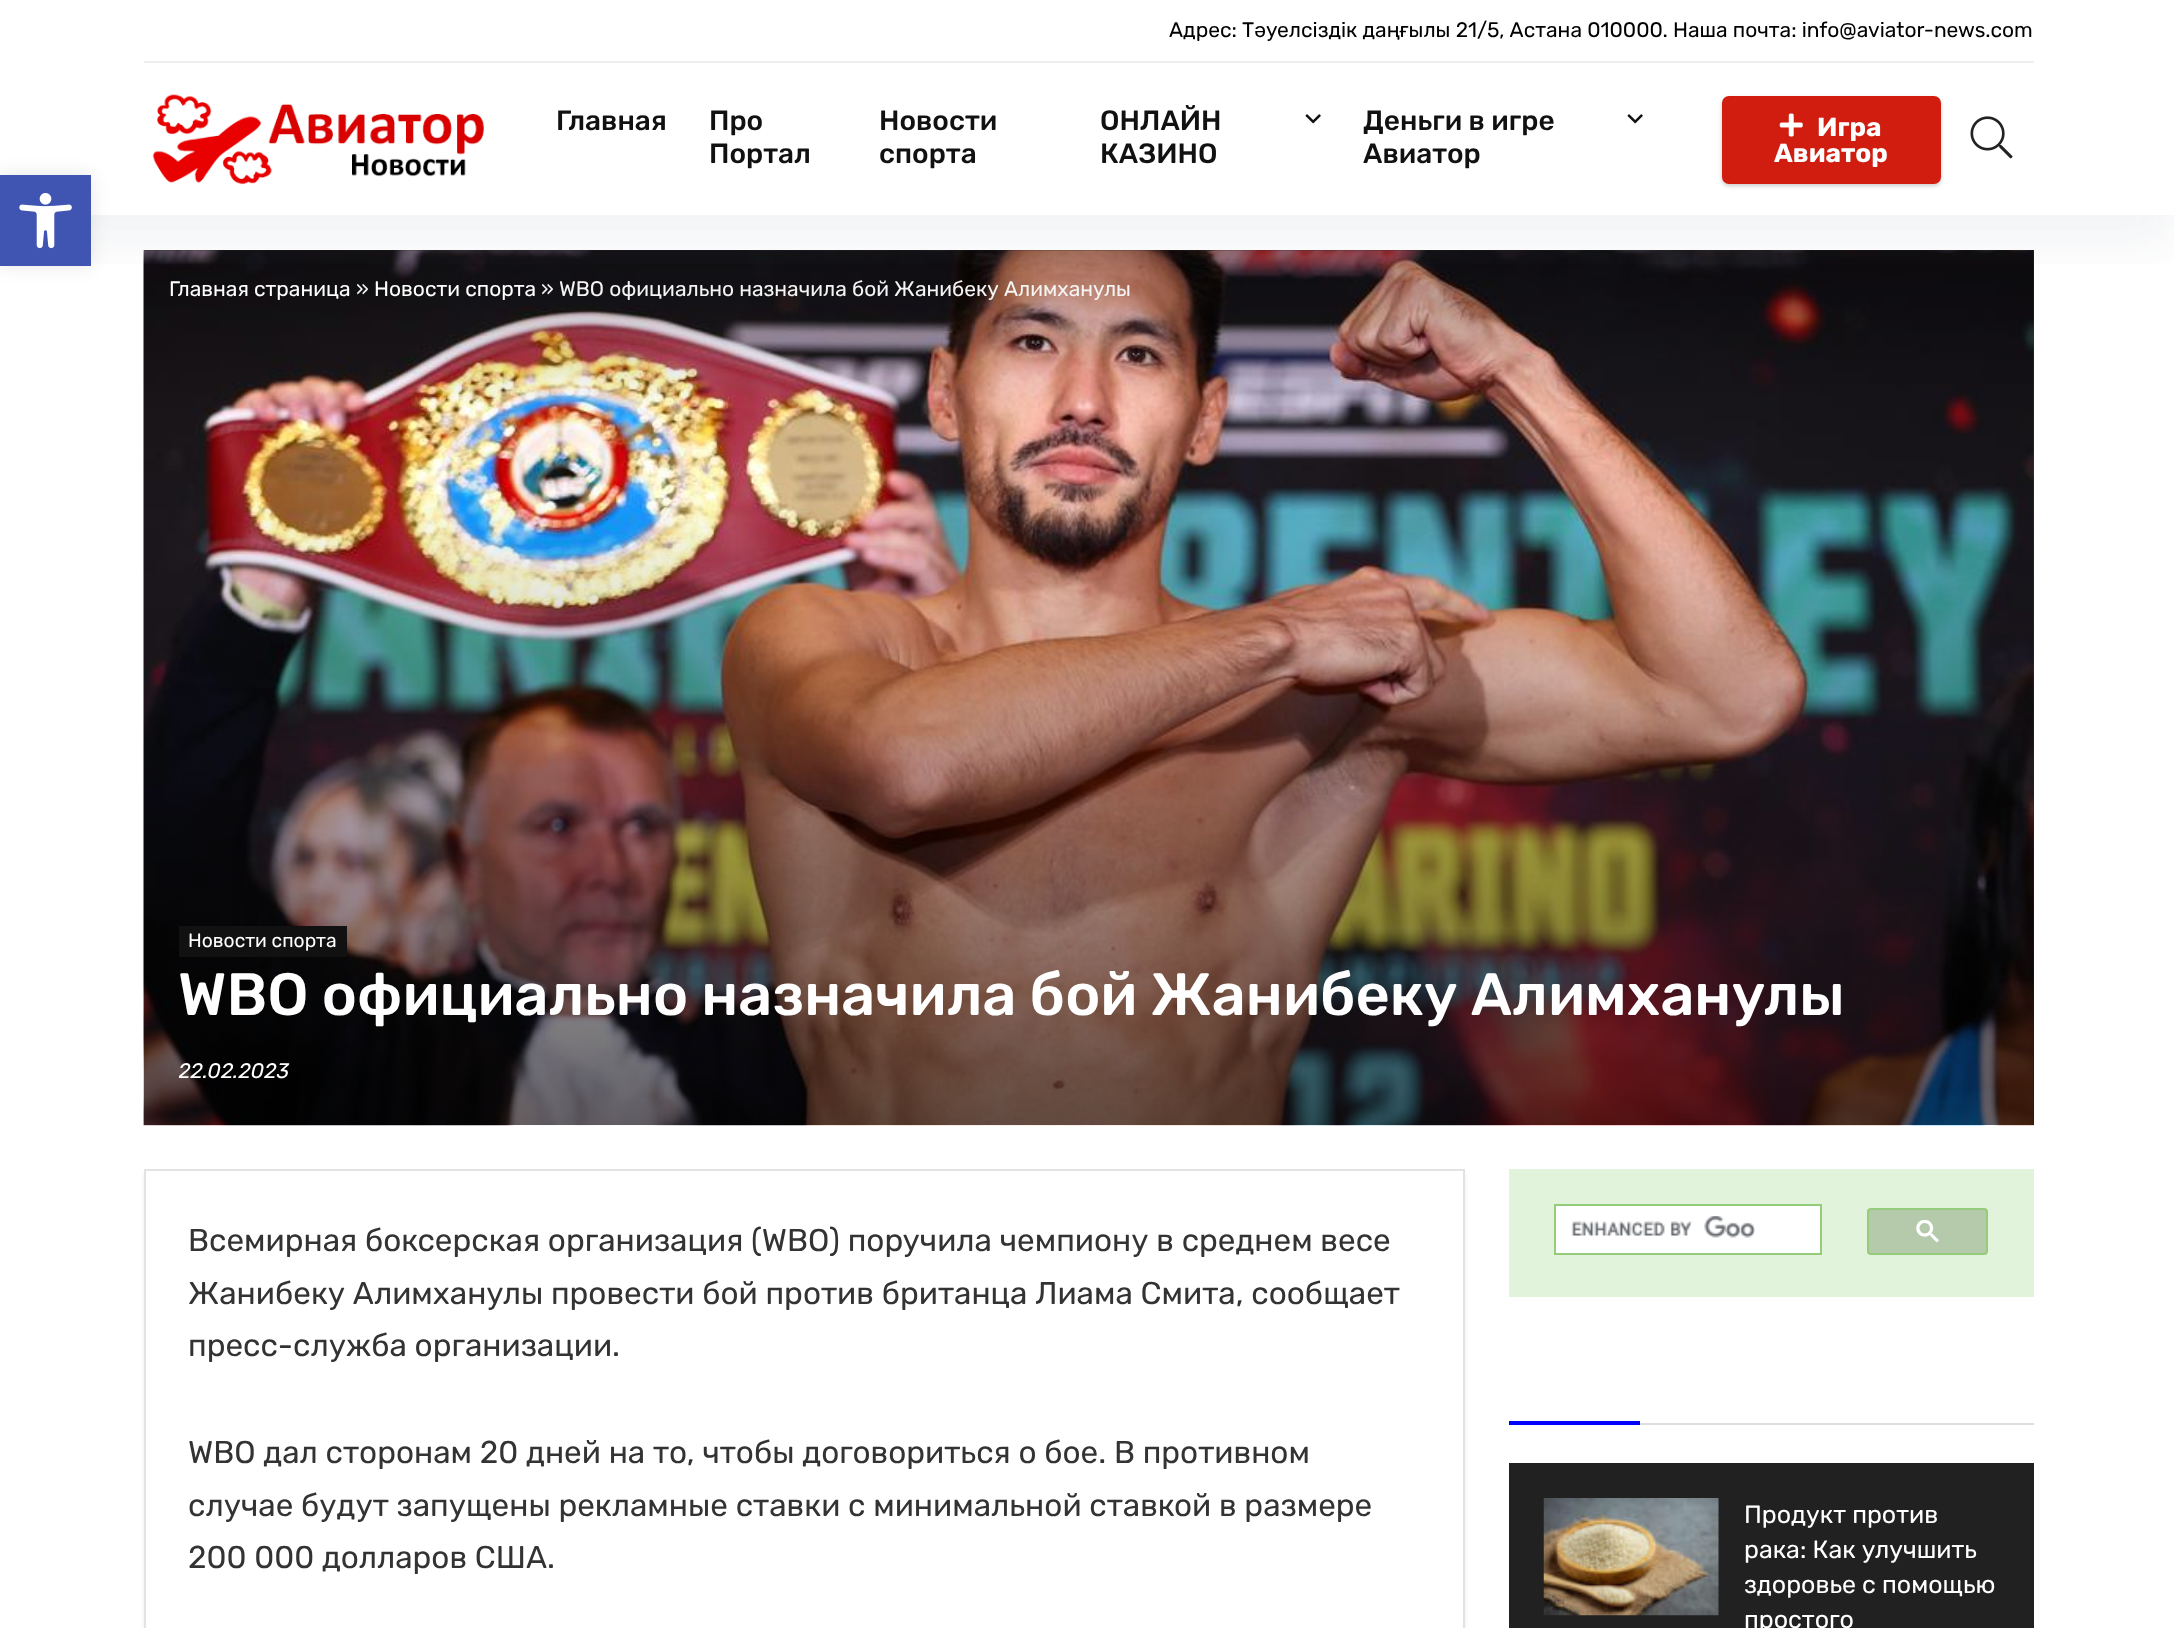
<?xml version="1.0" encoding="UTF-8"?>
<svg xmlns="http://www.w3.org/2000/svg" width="2174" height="1628">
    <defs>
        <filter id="blur1" x="-50%" y="-200%" width="200%" height="500%"><feGaussianBlur stdDeviation="9"/></filter>
        <linearGradient id="g1" gradientUnits="userSpaceOnUse" x1="1089" y1="250" x2="1089" y2="1125"><stop offset="0" stop-color="#000000" stop-opacity="0.3"/><stop offset="0.18" stop-color="#000000" stop-opacity="0"/><stop offset="0.28" stop-color="#000000" stop-opacity="0"/><stop offset="1" stop-color="#000000" stop-opacity="0.6"/></linearGradient>
        <clipPath id="clip1"><rect x="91" y="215" width="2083" height="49"/></clipPath>
        <filter id="blur2" x="-50%" y="-200%" width="200%" height="500%"><feGaussianBlur stdDeviation="26"/></filter>
        <filter id="blur3" x="-50%" y="-200%" width="200%" height="500%"><feGaussianBlur stdDeviation="2"/></filter>
        <clipPath id="clip2"><rect x="179" y="1061" width="1820" height="21"/></clipPath>
    </defs>
    <rect width="100%" height="100%" fill="#FFFFFF"/>
    <rect x="0" y="175" width="91" height="91" fill="#000000" fill-opacity="0.1" filter="url(#blur1)"/>
    <rect x="144" y="250" width="1890" height="875" fill="#333333"/>
    <image x="143" y="250" width="1891" height="876" href="img_06.png"/>
    <rect x="144" y="250" width="1890" height="875" fill="url(#g1)"/>
    <g clip-path="url(#clip1)">
        <rect x="0" y="89" width="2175" height="153" fill="#777B92" fill-opacity="0.1" filter="url(#blur2)"/>
    </g>
    <rect x="0" y="175" width="91" height="91" fill="#4054B2"/>
    <image x="19" y="193" width="53" height="56" href="img_01.png"/>
    <rect x="144" y="61" width="1890" height="2" fill="#EEEEEE"/>
    <text x="1169" y="37" font-family="Rubik" font-size="21" fill="#000000">Адрес: Тәуелсіздік даңғылы 21/5, Астана 010000. Наша почта: info@aviator-news.com</text>
    <image x="152" y="94" width="332" height="91" href="img_02.png"/>
    <text x="556" y="130" font-family="Rubik" font-size="28" font-weight="500" fill="#111111">Главная</text>
    <text font-family="Rubik" font-size="28" font-weight="500" fill="#111111">
        <tspan x="709" y="130">Про</tspan>
        <tspan x="709" y="163">Портал</tspan>
    </text>
    <text font-family="Rubik" font-size="28" font-weight="500" fill="#111111">
        <tspan x="879" y="130">Новости</tspan>
        <tspan x="879" y="163">спорта</tspan>
    </text>
    <text x="1100" y="130" font-family="Rubik" font-size="28" font-weight="500" fill="#111111">ОНЛАЙН</text>
    <image x="1305" y="114" width="16" height="10" href="img_03.png"/>
    <text x="1100" y="163" font-family="Rubik" font-size="28" font-weight="500" fill="#111111">КАЗИНО</text>
    <text x="1363" y="130" font-family="Rubik" font-size="28" font-weight="500" fill="#111111">Деньги в игре</text>
    <image x="1627" y="114" width="16" height="10" href="img_03.png"/>
    <text x="1363" y="163" font-family="Rubik" font-size="28" font-weight="500" fill="#111111">Авиатор</text>
    <rect x="1722" y="98" width="219" height="88" rx="7" fill="#000000" fill-opacity="0.2" filter="url(#blur3)"/>
    <rect x="1723" y="97" width="217" height="86" rx="6" fill="#D01D10" stroke="#D01D10" stroke-width="2"/>
    <image x="1779" y="113" width="24" height="24" href="img_04.png"/>
    <text x="1817" y="136" font-family="Rubik" font-size="26.25" font-weight="700" fill="#FFFFFF">Игра</text>
    <text x="1774" y="162" font-family="Rubik" font-size="26.25" font-weight="700" fill="#FFFFFF">Авиатор</text>
    <image x="1970" y="116" width="43" height="43" href="img_05.png"/>
    <text x="169" y="296" font-family="Rubik" font-size="21" fill="#FFFFFF">Главная страница</text>
    <text x="356" y="296" font-family="Rubik" font-size="21" fill="#F4F4F4">»</text>
    <text x="374" y="296" font-family="Rubik" font-size="21" fill="#FFFFFF">Новости спорта</text>
    <text x="541" y="296" font-family="Rubik" font-size="21" fill="#F4F4F4">»</text>
    <text x="559" y="296" font-family="Rubik" font-size="21" fill="#F4F4F4">WBO официально назначила бой Жанибеку Алимханулы</text>
    <rect x="179" y="926" width="168" height="31" fill="#111111"/>
    <text x="188" y="947" font-family="Rubik" font-size="19.25" fill="#FFFFFF">Новости спорта</text>
    <text x="178" y="1015" word-spacing="-0.5" font-family="Rubik" font-size="59.5" font-weight="500" fill="#FFFFFF">WBO официально назначила бой Жанибеку Алимханулы</text>
    <g clip-path="url(#clip2)">
        <text x="178" y="1078" font-family="Rubik" font-size="21" font-style="italic" fill="#FFFFFF">22.02.2023</text>
    </g>
    <rect x="144" y="1173" width="1321" height="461" fill="#ECECEC" filter="url(#blur3)"/>
    <rect x="145" y="1170" width="1319" height="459" fill="#FFFFFF" stroke="#E3E3E3" stroke-width="2"/>
    <text font-family="Rubik" font-size="31.5" fill="#333333">
        <tspan x="188" y="1251">Всемирная боксерская организация (WBO) поручила чемпиону в среднем весе</tspan>
        <tspan x="188" y="1304">Жанибеку Алимханулы провести бой против британца Лиама Смита, сообщает</tspan>
        <tspan x="188" y="1356">пресс-служба организации.</tspan>
    </text>
    <text font-family="Rubik" font-size="31.5" fill="#333333">
        <tspan x="188" y="1463">WBO дал сторонам 20 дней на то, чтобы договориться о бое. В противном</tspan>
        <tspan x="188" y="1516">случае будут запущены рекламные ставки с минимальной ставкой в размере</tspan>
        <tspan x="188" y="1568">200 000 долларов США.</tspan>
    </text>
    <rect x="1509" y="1169" width="525" height="128" fill="#E1F3DA"/>
    <rect x="1555" y="1205" width="266" height="49" fill="#FFFFFF" stroke="#94CC7A" stroke-width="2"/>
    <image x="1571" y="1216" width="184" height="22" href="img_07.png"/>
    <rect x="1868" y="1209" width="119" height="45" rx="3" fill="#B5C9AB" stroke="#94CC7A" stroke-width="2"/>
    <image x="1916" y="1220" width="23" height="23" href="img_08.png"/>
    <rect x="1640" y="1423" width="394" height="2" fill="#DDDDDD"/>
    <rect x="1509" y="1421" width="131" height="4" fill="#0000FF"/>
    <rect x="1509" y="1463" width="525" height="165" fill="#212121"/>
    <image x="1543" y="1498" width="176" height="118" href="img_09.png"/>
    <text font-family="Rubik" font-size="25" fill="#FFFFFF">
        <tspan x="1744" y="1523">Продукт против</tspan>
        <tspan x="1744" y="1558">рака: Как улучшить</tspan>
        <tspan x="1744" y="1593">здоровье с помощью</tspan>
        <tspan x="1744" y="1628">простого</tspan>
    </text>
</svg>
